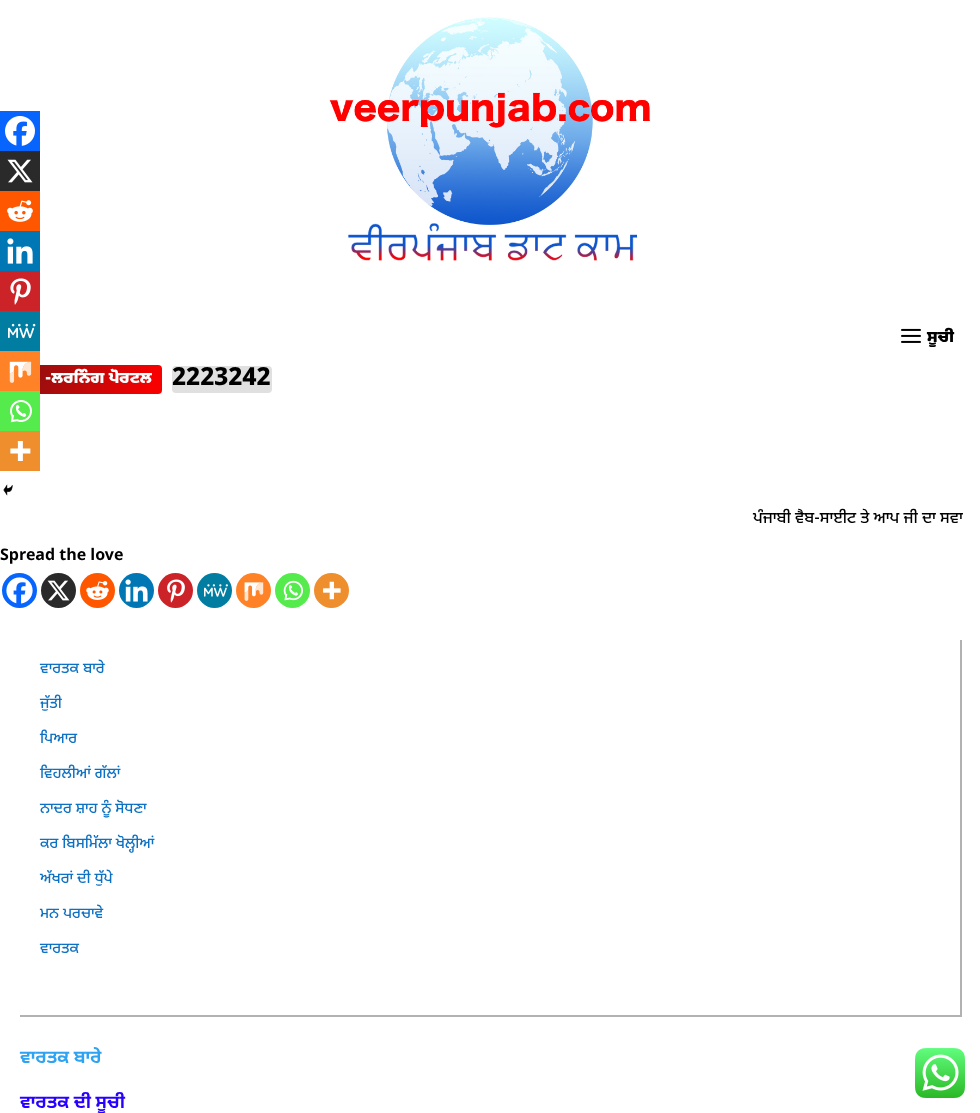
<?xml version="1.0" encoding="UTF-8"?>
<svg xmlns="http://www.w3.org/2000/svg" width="980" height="1113">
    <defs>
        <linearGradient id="g1" gradientUnits="userSpaceOnUse" x1="22" y1="358" x2="160" y2="401"><stop offset="0.11" stop-color="#960F0F"/><stop offset="0.91" stop-color="#F70000"/></linearGradient>
        <clipPath id="clip1"><path d="M 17 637 H 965 V 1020 H 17 Z M 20 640 H 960 V 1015 H 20 Z" clip-rule="evenodd"/></clipPath>
        <filter id="blur1" x="-50%" y="-200%" width="200%" height="500%"><feGaussianBlur stdDeviation="0.5"/></filter>
    </defs>
    <rect width="100%" height="100%" fill="#FFFFFF"/>
    <image x="329" y="17" width="321" height="244" href="img_01.png"/>
    <image x="901" y="328" width="20" height="15" href="img_02.png"/>
    <text x="927" y="342" font-family="Noto Sans Gurmukhi" font-size="16" font-weight="900" fill="#000000">ਸੂਚੀ</text>
    <rect x="20" y="365" width="142" height="29" rx="4" fill="url(#g1)"/>
    <text x="45" y="383" font-family="Noto Sans Gurmukhi" font-size="16" font-weight="900" fill="#FFFFFF">-ਲਰਨਿੰਗ ਪੋਰਟਲ</text>
    <rect x="172" y="366" width="100" height="27" rx="4" fill="#E0E0E0"/>
    <text x="172" y="385" font-family="Noto Sans Gurmukhi" font-size="25" font-weight="800" fill="#000000">2223242</text>
    <text x="753" y="523" font-family="Noto Sans Gurmukhi" font-size="16" font-weight="500" fill="#000000">ਪੰਜਾਬੀ ਵੈਬ-ਸਾਈਟ ਤੇ ਆਪ ਜੀ ਦਾ ਸਵਾ</text>
    <rect x="0" y="111" width="40" height="40" fill="#0765FE"/>
    <image x="5" y="116" width="30" height="30" href="img_03.png"/>
    <rect x="0" y="151" width="40" height="40" fill="#2A2A2A"/>
    <image x="7" y="159" width="26" height="24" href="img_04.png"/>
    <rect x="0" y="191" width="40" height="40" fill="#FF5700"/>
    <image x="7" y="200" width="26" height="22" href="img_05.png"/>
    <rect x="0" y="231" width="40" height="40" fill="#0077B5"/>
    <image x="7" y="238" width="26" height="26" href="img_06.png"/>
    <rect x="0" y="271" width="40" height="40" fill="#CC2329"/>
    <image x="10" y="278" width="21" height="27" href="img_07.png"/>
    <rect x="0" y="311" width="40" height="40" fill="#007DA1"/>
    <image x="8" y="323" width="28" height="16" href="img_08.png"/>
    <rect x="0" y="351" width="40" height="40" fill="#FF8226"/>
    <image x="9" y="361" width="23" height="22" href="img_09.png"/>
    <rect x="0" y="391" width="40" height="40" fill="#55EB4C"/>
    <image x="10" y="400" width="22" height="23" href="img_10.png"/>
    <rect x="0" y="431" width="40" height="40" fill="#EE8E2D"/>
    <image x="10" y="441" width="21" height="20" href="img_11.png"/>
    <image x="3" y="484" width="10" height="12" href="img_12.png"/>
    <text x="0" y="560" font-family="Noto Sans Gurmukhi" font-size="16" font-weight="700" fill="#000000">Spread the love</text>
    <circle cx="19.5" cy="590.5" r="17.5" fill="#0765FE"/>
    <image x="6" y="577" width="27" height="27" href="img_13.png"/>
    <circle cx="58.5" cy="590.5" r="17.5" fill="#2A2A2A"/>
    <image x="47" y="580" width="23" height="21" href="img_14.png"/>
    <circle cx="97.5" cy="590.5" r="17.5" fill="#FF5700"/>
    <image x="86" y="581" width="23" height="19" href="img_15.png"/>
    <circle cx="136.5" cy="590.5" r="17.5" fill="#0077B5"/>
    <image x="125" y="579" width="23" height="23" href="img_16.png"/>
    <circle cx="175.5" cy="590.5" r="17.5" fill="#CC2329"/>
    <image x="167" y="579" width="18" height="24" href="img_17.png"/>
    <circle cx="214.5" cy="590.5" r="17.5" fill="#007DA1"/>
    <image x="204" y="584" width="24" height="13" href="img_18.png"/>
    <circle cx="253.5" cy="590.5" r="17.5" fill="#FF8226"/>
    <image x="244" y="582" width="20" height="19" href="img_19.png"/>
    <circle cx="292.5" cy="590.5" r="17.5" fill="#55EB4C"/>
    <image x="283" y="580" width="20" height="21" href="img_20.png"/>
    <circle cx="331.5" cy="590.5" r="17.5" fill="#EE8E2D"/>
    <image x="323" y="581" width="18" height="19" href="img_21.png"/>
    <g clip-path="url(#clip1)">
        <rect x="20" y="640" width="942" height="377" fill="#000000" fill-opacity="0.3" filter="url(#blur1)"/>
    </g>
    <text x="40" y="673" font-family="Noto Sans Gurmukhi" font-size="15" font-weight="500" fill="#0C71C3">ਵਾਰਤਕ ਬਾਰੇ</text>
    <text x="40" y="708" font-family="Noto Sans Gurmukhi" font-size="15" font-weight="500" fill="#0C71C3">ਜੁੱਤੀ</text>
    <text x="40" y="743" font-family="Noto Sans Gurmukhi" font-size="15" font-weight="500" fill="#0C71C3">ਪਿਆਰ</text>
    <text x="40" y="778" font-family="Noto Sans Gurmukhi" font-size="15" font-weight="500" fill="#0C71C3">ਵਿਹਲੀਆਂ ਗੱਲਾਂ</text>
    <text x="40" y="813" font-family="Noto Sans Gurmukhi" font-size="15" font-weight="500" fill="#0C71C3">ਨਾਦਰ ਸ਼ਾਹ ਨੂੰ ਸੋਧਣਾ</text>
    <text x="40" y="848" font-family="Noto Sans Gurmukhi" font-size="15" font-weight="500" fill="#0C71C3">ਕਰ ਬਿਸਮਿੱਲਾ ਖੋਲ੍ਹੀਆਂ</text>
    <text x="40" y="883" font-family="Noto Sans Gurmukhi" font-size="15" font-weight="500" fill="#0C71C3">ਅੱਖਰਾਂ ਦੀ ਧੁੱਪੇ</text>
    <text x="40" y="918" font-family="Noto Sans Gurmukhi" font-size="15" font-weight="500" fill="#0C71C3">ਮਨ ਪਰਚਾਵੇ</text>
    <text x="40" y="953" font-family="Noto Sans Gurmukhi" font-size="15" font-weight="500" fill="#0C71C3">ਵਾਰਤਕ</text>
    <text x="20" y="1063" font-family="Noto Sans Gurmukhi" font-size="18" font-weight="700" fill="#2EA3F2">ਵਾਰਤਕ ਬਾਰੇ</text>
    <text x="20" y="1108" font-family="Noto Sans Gurmukhi" font-size="18" font-weight="700" fill="#2800FF">ਵਾਰਤਕ ਦੀ ਸੂਚੀ</text>
    <image x="915" y="1048" width="50" height="50" href="img_22.png"/>
</svg>
